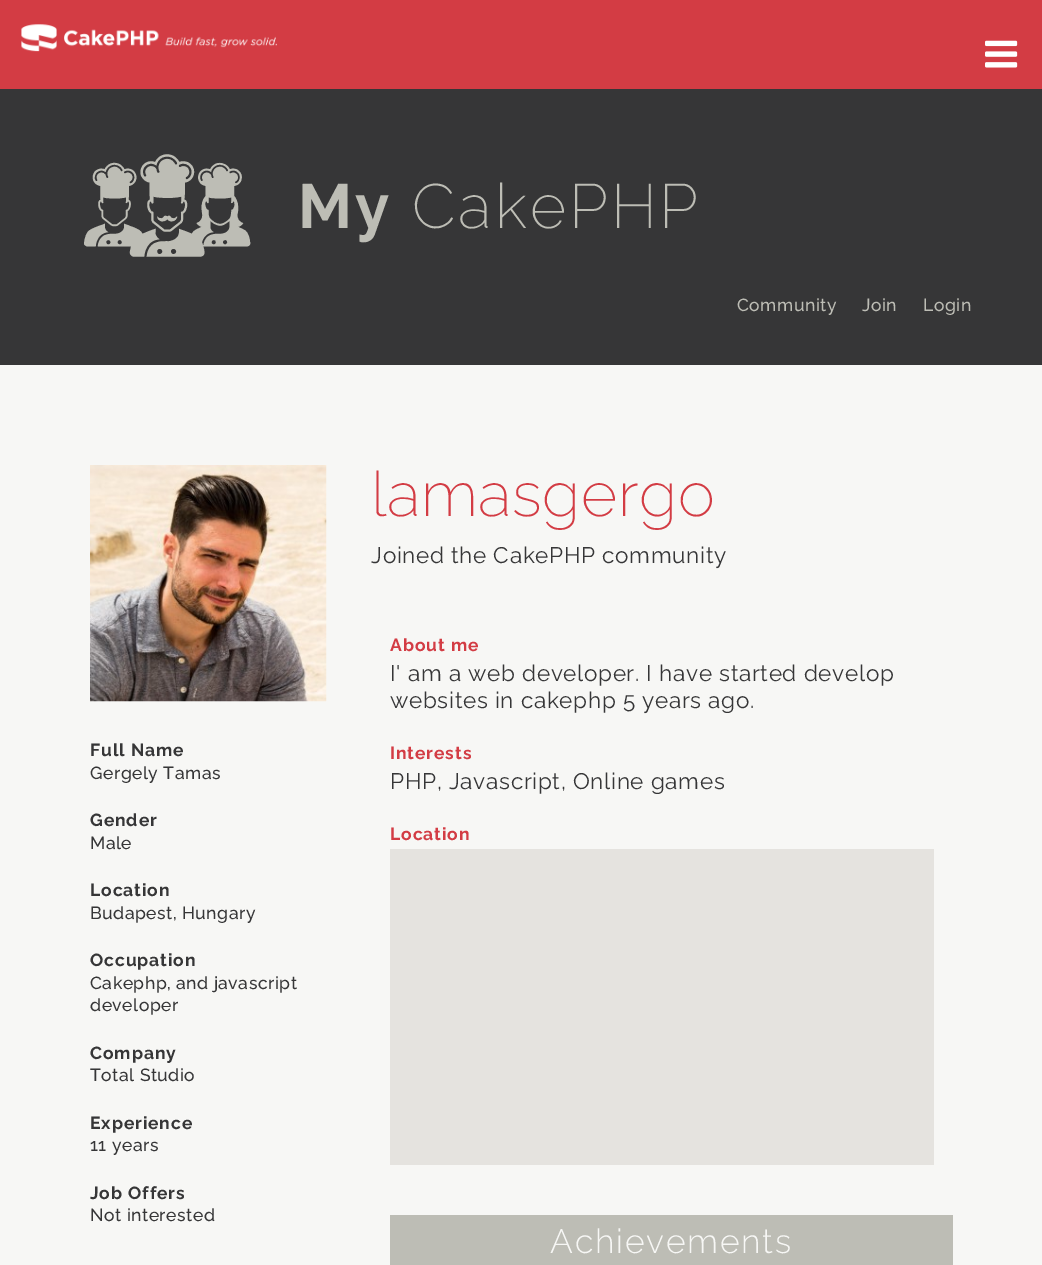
%!PS
<< /PageSize [1042 1265] >> setpagedevice
/mt/moveto load def
/co { dup -16 bitshift 255 div exch dup -8 bitshift 255 and 255 div exch 255 and 255 div setrgbcolor } def
/fn { [ exch dup neg 0 0 3 -1 roll 0 0 ] selectfont } def
/bx { co rectfill } def
/im { 5 dict begin { /h /w /y /x /name } { exch def } forall
  gsave x y translate w h scale
  w h 8 [w 0 0 h 0 0] name (r) file false 3 colorimage grestore end } def
0 1265 translate 1 -1 scale
4 setmiterlimit
0 0 1042 1265 16#363637 bx
0 0 1042 89 16#D33C44 bx
(media/1.raw) 21 24 256 28 im
(media/2.raw) 985 40 33 28 im
0 365 1042 900 16#F7F7F5 bx
(media/3.raw) 90 465 237 237 im
390 849 544 316 16#E5E3DF bx
390 1215 563 50 16#BDBDB5 bx
/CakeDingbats-Regular 112 fn
84 250 mt 3 0 (a) ashow
/Raleway-Bold 62.5 fn
298 228 mt 3 0 (My) ashow
/Raleway-ExtraLight 62.5 fn
412 228 mt 3 0 (CakePHP) ashow
/Raleway-Medium 17.5 fn
737 311 mt .5 0 (Community) ashow
862 311 mt .5 0 (Join) ashow
923 311 mt .5 0 (Login) ashow
/Raleway-Bold 17.5 fn
16#363637 co
90 756 mt .9 0 (Full Name) ashow
/Raleway-Medium 17.5 fn
90 779 mt .5 0 (Gergely Tamas) ashow
/Raleway-Bold 17.5 fn
90 826 mt .9 0 (Gender) ashow
/Raleway-Medium 17.5 fn
90 849 mt .5 0 (Male) ashow
/Raleway-Bold 17.5 fn
90 896 mt .9 0 (Location) ashow
/Raleway-Medium 17.5 fn
90 919 mt .5 0 (Budapest, Hungary) ashow
/Raleway-Bold 17.5 fn
90 966 mt .9 0 (Occupation) ashow
/Raleway-Medium 17.5 fn
90 989 mt .5 0 (Cakephp, and javascript) ashow
90 1011 mt .5 0 (developer) ashow
/Raleway-Bold 17.5 fn
90 1059 mt .9 0 (Company) ashow
/Raleway-Medium 17.5 fn
90 1081 mt .5 0 (Total Studio) ashow
/Raleway-Bold 17.5 fn
90 1129 mt .9 0 (Experience) ashow
/Raleway-Medium 17.5 fn
90 1151 mt .5 0 (11 years) ashow
/Raleway-Bold 17.5 fn
90 1199 mt .9 0 (Job Offers) ashow
/Raleway-Medium 17.5 fn
90 1221 mt .5 0 (Not interested) ashow
/Raleway-ExtraLight 62.5 fn
16#D33C44 co
371 516 mt .6 0 (lamasgergo) ashow
/Raleway-Regular 22.5 fn
16#363637 co
371 563 mt .7 0 (Joined the CakePHP community) ashow
/Raleway-Bold 17.5 fn
16#D33C44 co
390 651 mt .9 0 (About me) ashow
/Raleway-Regular 22.5 fn
16#363637 co
390 681 mt .7 0 (I' am a web developer. I have started develop) ashow
390 708 mt .7 0 (websites in cakephp 5 years ago.) ashow
/Raleway-Bold 17.5 fn
16#D33C44 co
390 759 mt .9 0 (Interests) ashow
/Raleway-Regular 22.5 fn
16#363637 co
390 789 mt .7 0 (PHP, Javascript, Online games) ashow
/Raleway-Bold 17.5 fn
16#D33C44 co
390 840 mt .9 0 (Location) ashow
/Raleway-Light 33.75 fn
16#F7F7F5 co
550 1253 mt 1.75 0 (Achievements) ashow
showpage
